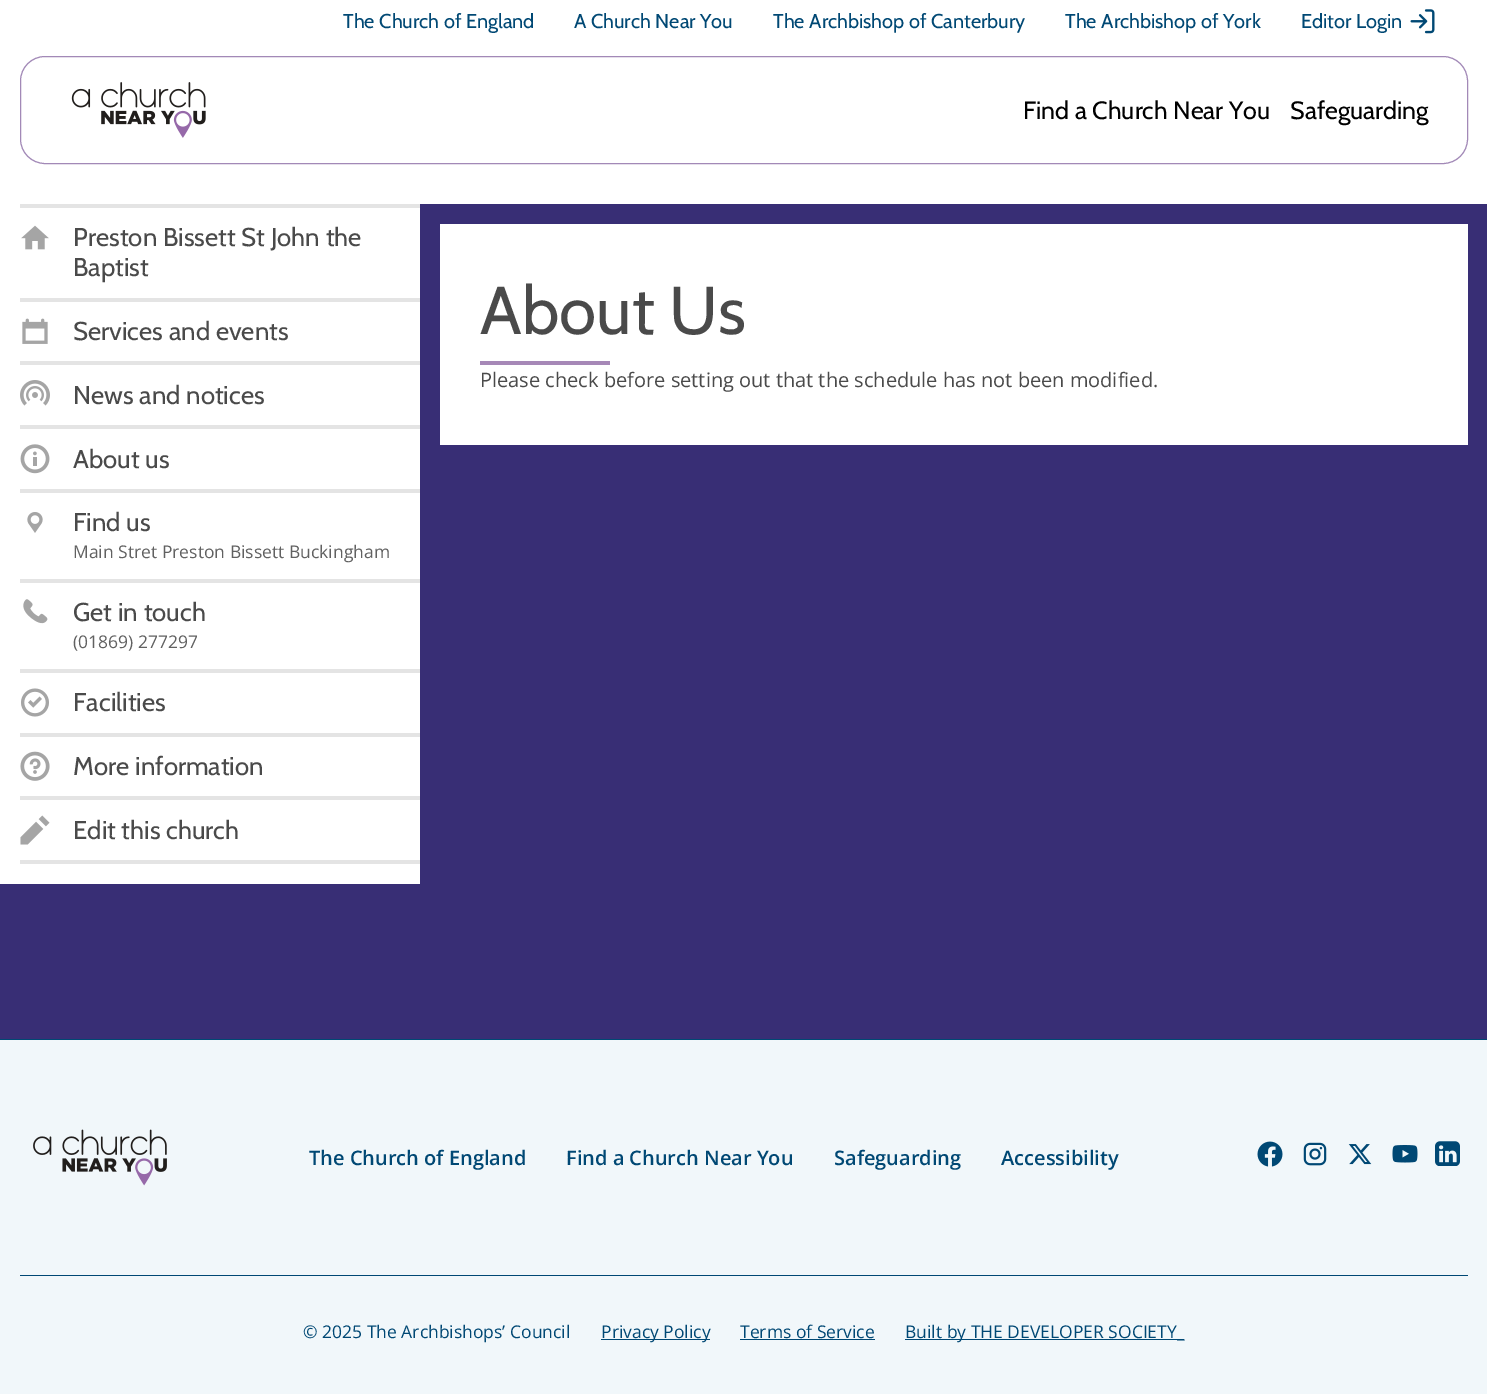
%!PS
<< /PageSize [1487 1394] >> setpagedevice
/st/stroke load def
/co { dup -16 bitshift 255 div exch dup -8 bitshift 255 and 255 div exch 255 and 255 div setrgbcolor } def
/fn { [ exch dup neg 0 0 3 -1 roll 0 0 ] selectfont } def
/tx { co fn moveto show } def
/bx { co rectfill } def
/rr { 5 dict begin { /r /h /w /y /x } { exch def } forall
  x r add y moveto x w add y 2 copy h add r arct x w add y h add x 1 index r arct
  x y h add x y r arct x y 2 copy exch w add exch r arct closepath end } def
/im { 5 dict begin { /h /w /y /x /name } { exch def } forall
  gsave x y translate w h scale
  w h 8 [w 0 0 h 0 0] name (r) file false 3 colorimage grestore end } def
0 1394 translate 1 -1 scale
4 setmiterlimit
0 0 1487 1394 16#FFFFFF bx
(media/1.raw) 1410 9 25 25 im
16#A289B7 co
20.5 56.5 1447 107 24.5 rr st
(media/2.raw) 71 82 135 56 im
0 204 1487 835 16#382E75 bx
0 204 420 680 16#FFFFFF bx
20 204 400 4 16#E4E4E4 bx
(media/3.raw) 21 225 28 25 im
20 298 400 4 16#E4E4E4 bx
(media/4.raw) 22 318 26 26 im
20 361 400 4 16#E4E4E4 bx
(media/5.raw) 20 380 30 26 im
20 425 400 4 16#E4E4E4 bx
(media/6.raw) 20 444 30 30 im
20 489 400 4 16#E4E4E4 bx
(media/7.raw) 27 512 16 21 im
20 579 400 4 16#E4E4E4 bx
(media/8.raw) 23 599 25 25 im
20 669 400 4 16#E4E4E4 bx
(media/9.raw) 21 688 28 29 im
20 733 400 4 16#E4E4E4 bx
(media/10.raw) 20 751 30 30 im
20 796 400 4 16#E4E4E4 bx
20 860 400 4 16#E4E4E4 bx
(media/11.raw) 20 815 30 30 im
440 224 1028 221 16#FFFFFF bx
480 361 130 4 16#A688B7 bx
0 1040 1487 354 16#F1F7FA bx
0 1039 1487 1 16#004874 bx
(media/12.raw) 33 1129 134 57 im
(media/13.raw) 1257 1141 26 26 im
(media/14.raw) 1303 1142 24 24 im
(media/15.raw) 1348 1144 24 21 im
(media/16.raw) 1392 1145 26 18 im
(media/17.raw) 1435 1141 25 25 im
20 1275 1448 1 16#004874 bx
601 1339 109 1 16#004874 bx
740 1339 135 1 16#004874 bx
905 1339 279 1 16#004874 bx
(The Church of England) 343 28 /Cabin-Regular 20 16#004874 tx
(A Church Near You) 574 28 /Cabin-Regular 20 16#004874 tx
(The Archbishop of Canterbury) 773 28 /Cabin-Regular 20 16#004874 tx
(The Archbishop of York) 1065 28 /Cabin-Regular 20 16#004874 tx
(Editor Login) 1301 28 /Cabin-Regular 20 16#004874 tx
(Find a Church Near You) 1023 119 /Cabin-Regular 25 16#000000 tx
(Safeguarding) 1290 119 /Cabin-Regular 25 16#000000 tx
(Preston Bissett St John the) 73 246 /Cabin-Regular 25.75 16#4A4A4A tx
(Baptist) 73 276 /Cabin-Regular 25.75 16#4A4A4A tx
(Services and events) 73 340 /Cabin-Regular 25.75 16#4A4A4A tx
(News and notices) 73 404 /Cabin-Regular 25.75 16#4A4A4A tx
(About us) 73 468 /Cabin-Regular 25.75 16#4A4A4A tx
(Find us) 73 531 /Cabin-Regular 25.75 16#4A4A4A tx
(Main Stret Preston Bissett Buckingham) 73 558 /OpenSans-Regular 17.5 16#616161 tx
(Get in touch) 73 621 /Cabin-Regular 25.75 16#4A4A4A tx
(\(01869\) 277297) 73 648 /OpenSans-Regular 17.5 16#616161 tx
(Facilities) 73 711 /Cabin-Regular 25.75 16#4A4A4A tx
(More information) 73 775 /Cabin-Regular 25.75 16#4A4A4A tx
(Edit this church) 73 839 /Cabin-Regular 25.75 16#4A4A4A tx
(About Us) 480 334 /Cabin-Regular 67.5 16#4A4A4A tx
(Please check before setting out that the schedule has not been modified.) 480 387 /OpenSans-Regular 20 16#4A4A4A tx
(The Church of England) 309 1165 /OpenSans-SemiBold 20 16#004874 tx
(Find a Church Near You) 566 1165 /OpenSans-SemiBold 20 16#004874 tx
(Safeguarding) 834 1165 /OpenSans-SemiBold 20 16#004874 tx
(Accessibility) 1001 1165 /OpenSans-SemiBold 20 16#004874 tx
(© 2025 The Archbishops’ Council) 303 1338 /OpenSans-Regular 17.5 16#004874 tx
(Privacy Policy) 601 1338 /OpenSans-Regular 17.5 16#004874 tx
(Terms of Service) 740 1338 /OpenSans-Regular 17.5 16#004874 tx
(Built by THE DEVELOPER SOCIETY_) 905 1338 /OpenSans-Regular 17.5 16#004874 tx
showpage
